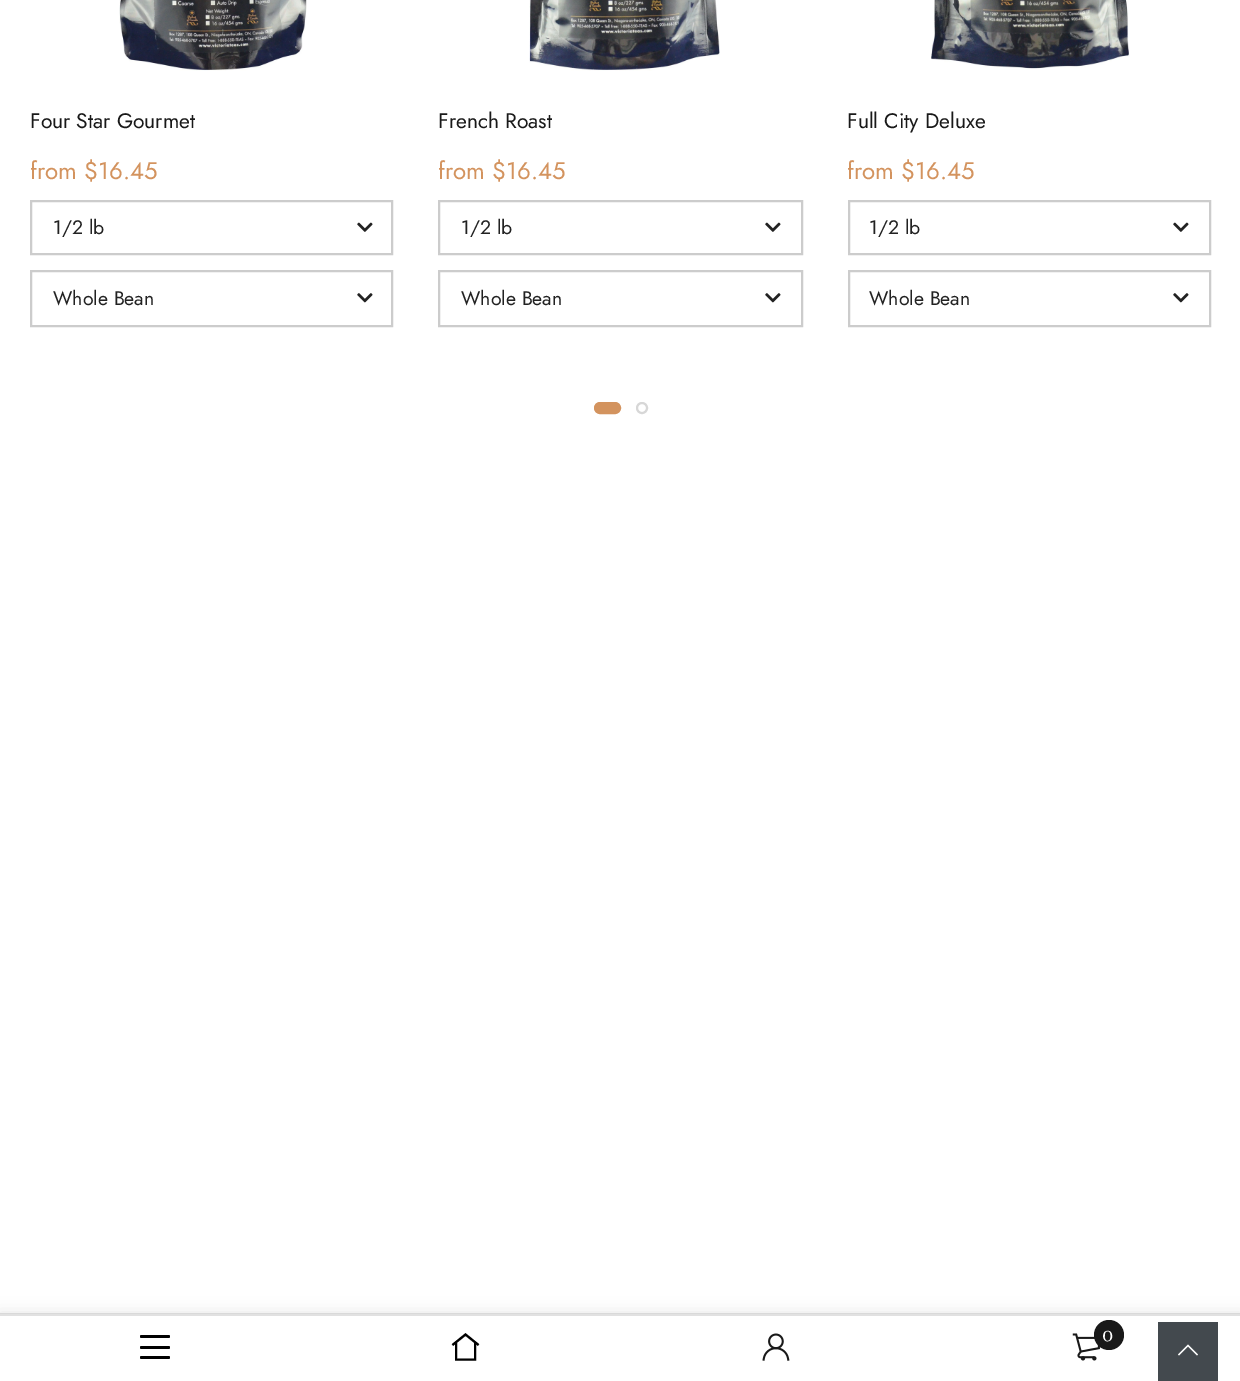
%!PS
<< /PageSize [1240 1381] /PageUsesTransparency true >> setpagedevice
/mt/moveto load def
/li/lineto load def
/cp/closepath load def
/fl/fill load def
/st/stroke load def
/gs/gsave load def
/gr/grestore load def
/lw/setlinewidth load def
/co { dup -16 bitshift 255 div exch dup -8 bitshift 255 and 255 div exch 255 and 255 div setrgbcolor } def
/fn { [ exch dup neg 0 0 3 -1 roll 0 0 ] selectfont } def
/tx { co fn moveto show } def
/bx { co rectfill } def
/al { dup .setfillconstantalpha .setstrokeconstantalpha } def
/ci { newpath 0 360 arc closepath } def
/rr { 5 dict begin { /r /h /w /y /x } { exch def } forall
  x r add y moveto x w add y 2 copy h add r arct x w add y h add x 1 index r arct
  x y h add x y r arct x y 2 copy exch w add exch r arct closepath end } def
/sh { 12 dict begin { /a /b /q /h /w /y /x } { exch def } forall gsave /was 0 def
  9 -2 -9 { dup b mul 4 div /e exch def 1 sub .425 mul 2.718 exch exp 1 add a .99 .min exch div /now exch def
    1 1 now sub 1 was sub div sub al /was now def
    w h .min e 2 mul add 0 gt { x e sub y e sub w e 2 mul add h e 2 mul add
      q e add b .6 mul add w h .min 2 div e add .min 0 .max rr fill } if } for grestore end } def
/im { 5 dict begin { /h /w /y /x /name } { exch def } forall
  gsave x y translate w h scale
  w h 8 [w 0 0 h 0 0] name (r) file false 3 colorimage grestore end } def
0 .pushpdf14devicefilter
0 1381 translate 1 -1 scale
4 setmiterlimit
0 0 1240 1381 16#FFFFFF bx
(media/1.raw) 119 0 188 71 im
(media/2.raw) 357 222 16 10 im
16#CCCCCC co
2 lw
31 201 361 53 rectstroke
(media/3.raw) 357 293 16 10 im
31 271 361 55 rectstroke
(media/4.raw) 529 0 191 71 im
(media/2.raw) 765 222 16 10 im
439 201 363 53 rectstroke
(media/3.raw) 765 293 16 10 im
439 271 363 55 rectstroke
(media/5.raw) 931 0 199 69 im
(media/2.raw) 1173 222 16 10 im
849 201 361 53 rectstroke
(media/3.raw) 1173 293 16 10 im
849 271 361 55 rectstroke
16#D3935E co
595 403 25 10 5 rr gs fl gr
st
16#D7D7D7 co
642 408 5 ci st
0 1313 1240 1 16#E5E5E5 bx
16#000000 co
-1 1313 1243 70 0 7.5 .1 sh
0 1316 1240 65 16#FFFFFF bx
0 1314 1240 2 16#E1E1E1 bx
16#000000 co
140 1335 30 3 1.5 rr fl
140 1346 30 3 1.5 rr fl
140 1356 30 3 1.5 rr fl
2.1 lw
475 1343 mt 475 1359.5 li 456 1359.5 li 456 1343 li 478.5 1345 mt 465.5 1334.5 li 452.5 1345 li st
(media/6.raw) 762 1333 28 28 im
(media/7.raw) 1072 1333 28 28 im
16#191919 co
1109 1335 15 ci fl
1158 1322 60 59 16#43494E bx
16#FFFFFF co
1188 1344.5 mt 1198 1354.5 li 1197 1355.5 li 1188 1346.5 li 1179 1355.5 li 1178 1354.5 li cp fl
(Four Star Gourmet) 30 128 /Jost-Regular 21 16#191919 tx
(from $16.45) 30 179 /Jost-Regular 24 16#D3935E tx
(1/2 lb) 53 234 /Jost-Regular 19.5 16#222222 tx
(Whole Bean) 53 305 /Jost-Regular 19.5 16#222222 tx
(French Roast) 438 128 /Jost-Regular 21 16#191919 tx
(from $16.45) 438 179 /Jost-Regular 24 16#D3935E tx
(1/2 lb) 461 234 /Jost-Regular 19.5 16#222222 tx
(Whole Bean) 461 305 /Jost-Regular 19.5 16#222222 tx
(Full City Deluxe) 847 128 /Jost-Regular 21 16#191919 tx
(from $16.45) 847 179 /Jost-Regular 24 16#D3935E tx
(1/2 lb) 869 234 /Jost-Regular 19.5 16#222222 tx
(Whole Bean) 869 305 /Jost-Regular 19.5 16#222222 tx
(0) 1102 1341 /Alice-Regular 19.5 16#FFFFFF tx
.poppdf14devicefilter showpage
